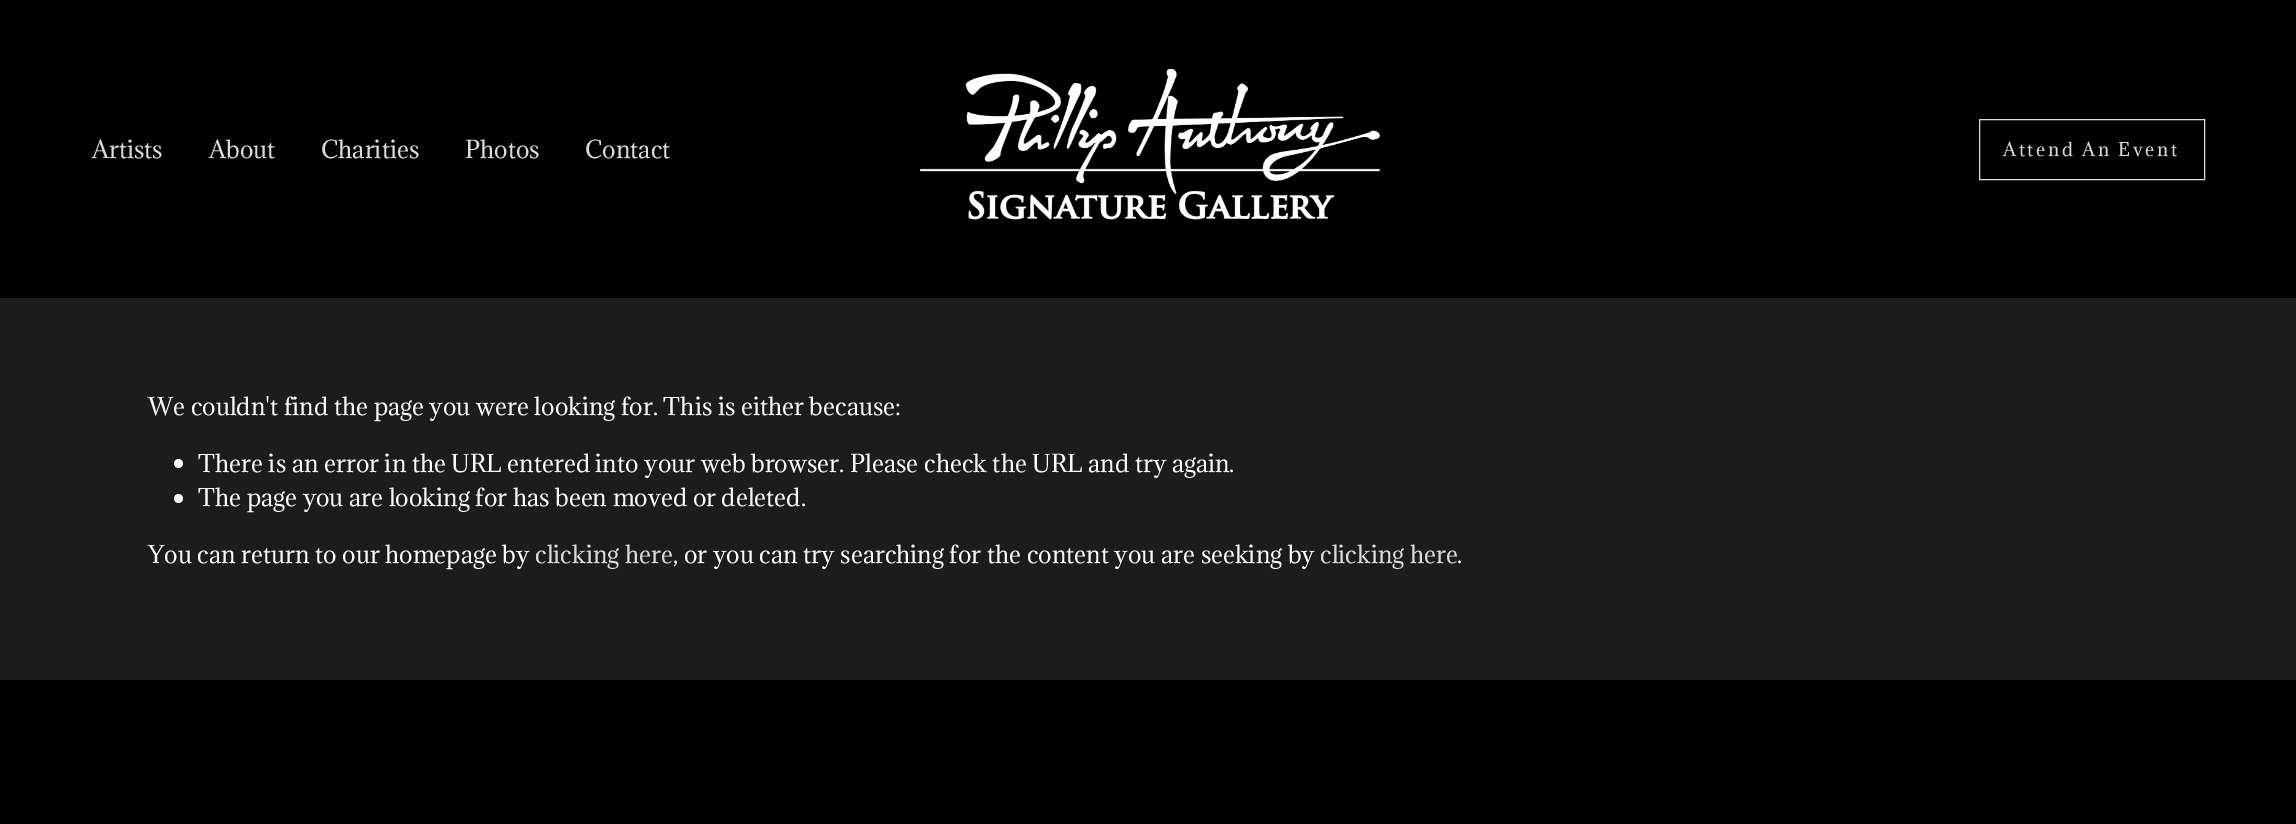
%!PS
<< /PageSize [2296 824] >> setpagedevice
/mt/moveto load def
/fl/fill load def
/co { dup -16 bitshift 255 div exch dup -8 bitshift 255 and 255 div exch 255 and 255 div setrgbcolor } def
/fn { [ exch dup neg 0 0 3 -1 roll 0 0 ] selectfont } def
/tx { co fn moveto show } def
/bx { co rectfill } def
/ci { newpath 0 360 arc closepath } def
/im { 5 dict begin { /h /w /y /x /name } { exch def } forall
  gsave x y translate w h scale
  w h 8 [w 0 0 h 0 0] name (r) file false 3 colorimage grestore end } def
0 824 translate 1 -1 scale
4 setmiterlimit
0 0 2296 824 16#1C1C1C bx
0 0 2296 298 16#000000 bx
(media/1.raw) 920 69 460 151 im
16#DCDCDC co
1979.5 119.5 225 60 rectstroke
16#FAFAFA co
178.5 463.5 4.5 ci fl
178.5 498.5 4.5 ci fl
0 680 2296 144 16#000000 bx
(Artists) 92 158 /Adamina-Regular 22.75 16#DCDCDC tx
(About) 209 158 /Adamina-Regular 22.75 16#DCDCDC tx
(Charities) 321 158 /Adamina-Regular 22.75 16#DCDCDC tx
(Photos) 465 158 /Adamina-Regular 22.75 16#DCDCDC tx
(Contact) 585 158 /Adamina-Regular 22.75 16#DCDCDC tx
/Adamina-Regular 17.5 fn
2003 156 mt 2.6 0 (Attend An Event) ashow
(We couldn't find the page you were looking for. This is either because:) 148 415 /Adamina-Regular 22.75 16#FAFAFA tx
(There is an error in the URL entered into your web browser. Please check the URL and try again.) 198 472 /Adamina-Regular 22.75 16#FAFAFA tx
(The page you are looking for has been moved or deleted.) 198 506 /Adamina-Regular 22.75 16#FAFAFA tx
(You can return to our homepage by) 148 563 /Adamina-Regular 22.75 16#FAFAFA tx
(clicking here) 535 563 /Adamina-Regular 22.75 16#DCDCDC tx
(, or you can try searching for the content you are seeking by) 673 563 /Adamina-Regular 22.75 16#FAFAFA tx
(clicking here) 1320 563 /Adamina-Regular 22.75 16#DCDCDC tx
(.) 1457 563 /Adamina-Regular 22.75 16#FAFAFA tx
showpage
